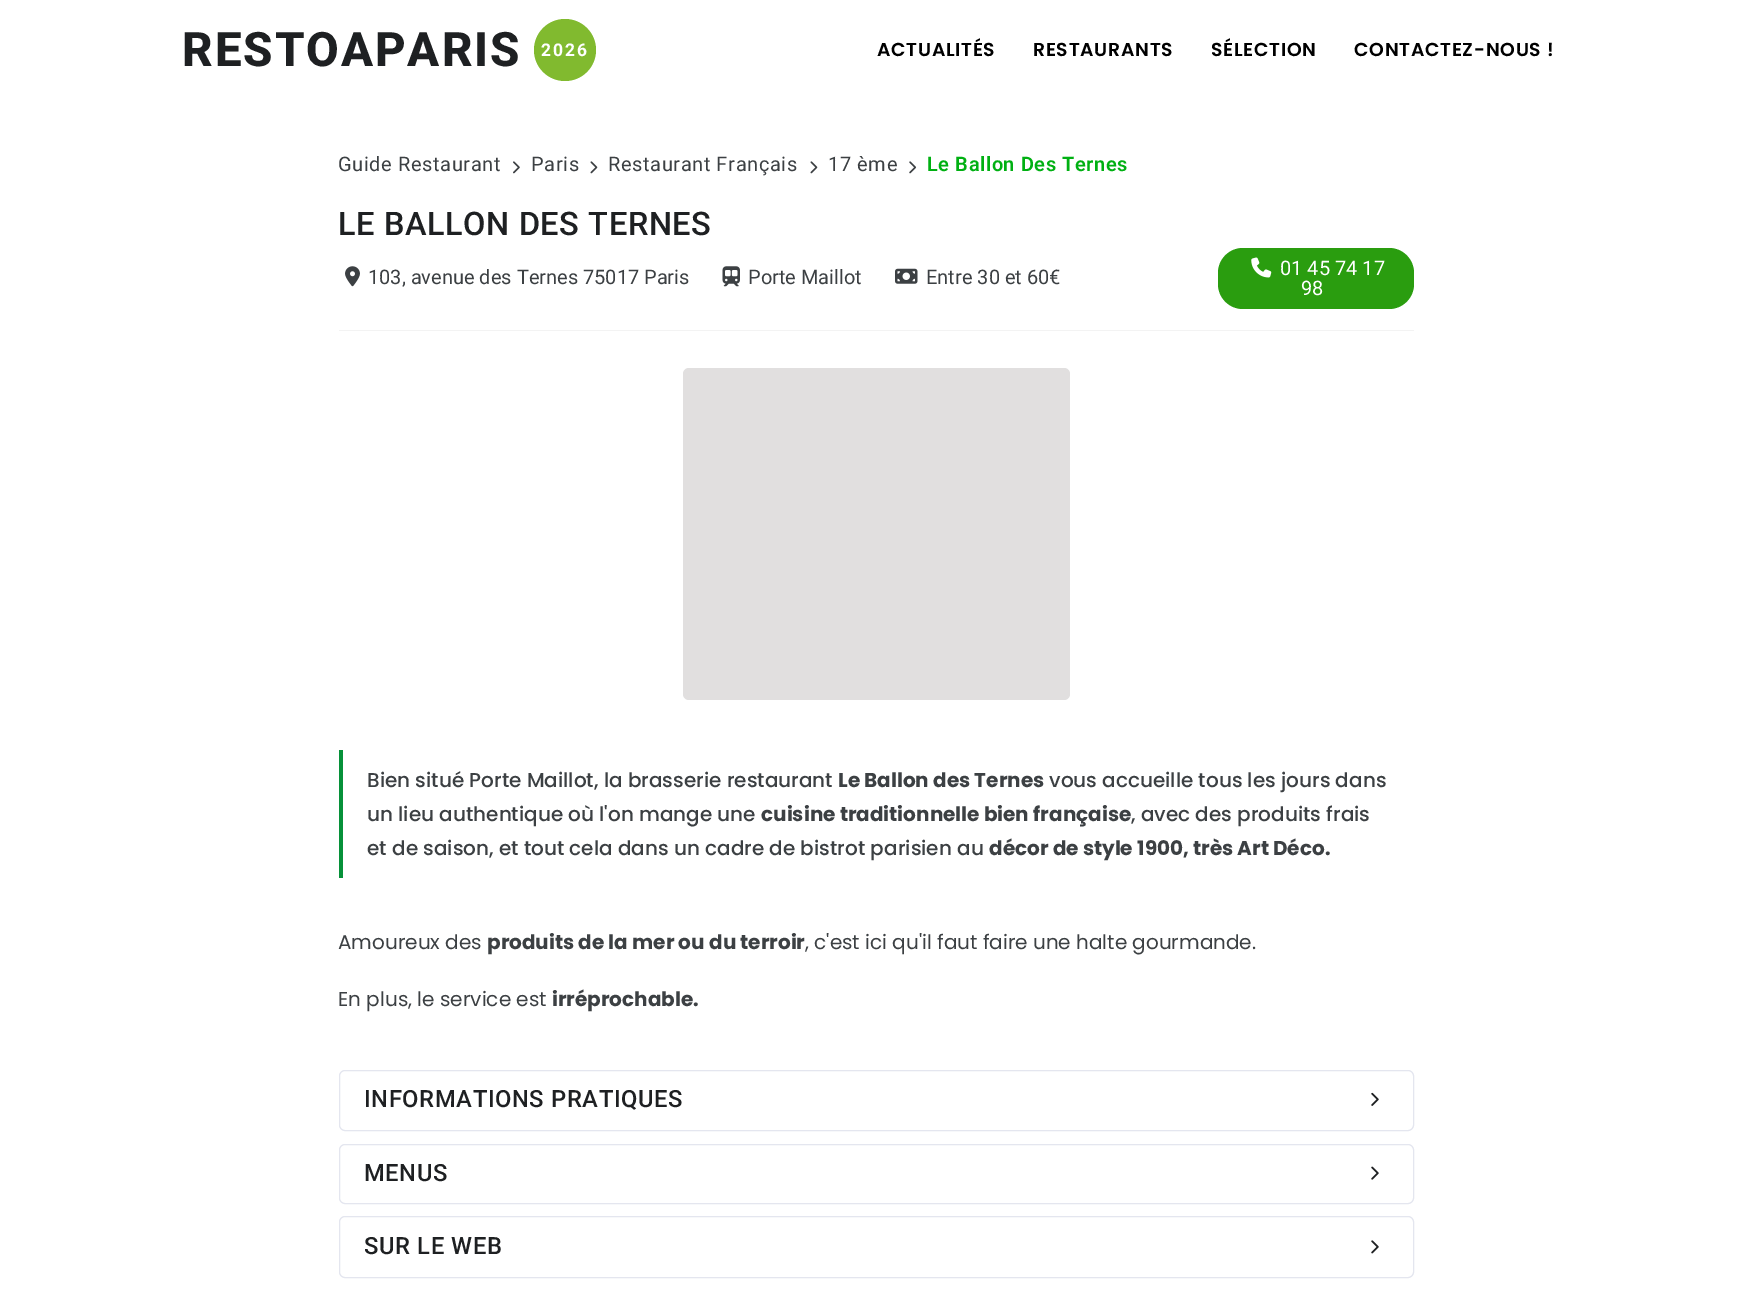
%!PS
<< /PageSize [1751 1315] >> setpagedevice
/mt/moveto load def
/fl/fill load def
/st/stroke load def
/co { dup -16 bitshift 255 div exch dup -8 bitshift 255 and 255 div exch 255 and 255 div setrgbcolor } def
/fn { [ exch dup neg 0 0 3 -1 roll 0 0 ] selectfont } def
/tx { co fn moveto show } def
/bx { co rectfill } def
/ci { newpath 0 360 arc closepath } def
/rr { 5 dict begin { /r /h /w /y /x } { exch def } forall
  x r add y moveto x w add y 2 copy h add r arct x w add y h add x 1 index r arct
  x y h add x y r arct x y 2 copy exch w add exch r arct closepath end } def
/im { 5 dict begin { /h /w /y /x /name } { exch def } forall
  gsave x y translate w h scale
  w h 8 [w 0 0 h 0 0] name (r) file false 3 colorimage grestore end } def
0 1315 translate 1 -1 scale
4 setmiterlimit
0 0 1751 1315 16#FFFFFF bx
16#81BA2F co
565 50 31 ci fl
(media/1.raw) 513 161 7 13 im
(media/2.raw) 590 161 8 13 im
(media/2.raw) 810 161 8 13 im
(media/3.raw) 909 161 8 13 im
339 330 1075 1 16#F3F3F3 bx
(media/4.raw) 345 266 15 21 im
(media/5.raw) 722 266 18 21 im
(media/6.raw) 895 268 23 16 im
16#2A9D0F co
1218 248 196 61 25 rr fl
(media/7.raw) 1251 257 21 21 im
16#E1DFDF co
683 368 387 332 6 rr fl
339 750 4 128 16#069139 bx
16#E4E6EF co
339.5 1070.5 1074 60 5.5 rr st
(media/8.raw) 1371 1092 8 14 im
339.5 1144.5 1074 59 5.5 rr st
(media/9.raw) 1371 1166 8 14 im
339.5 1216.5 1074 61 5.5 rr st
(media/10.raw) 1371 1240 8 14 im
/Roboto-ExtraBold 47.5 fn
16#1E2022 co
182 66 mt 1.9 0 (RESTOAPARIS) ashow
/Roboto-Bold 17.5 fn
16#FFFFFF co
541 56 mt 1.9 0 (2026) ashow
/Poppins-SemiBold 18.75 fn
16#000000 co
877 56 mt .75 0 (ACTUALITÉS) ashow
1033 56 mt .75 0 (RESTAURANTS) ashow
1211 56 mt .75 0 (SÉLECTION) ashow
1354 56 mt .75 0 (CONTACTEZ-NOUS !) ashow
/Roboto-Regular 20 fn
16#3C4043 co
338 171 mt .6 0 (Guide Restaurant) ashow
531 171 mt .6 0 (Paris) ashow
608 171 mt .6 0 (Restaurant Français) ashow
828 171 mt .6 0 (17 ème) ashow
/Roboto-SemiBold 20 fn
16#00B012 co
927 171 mt .6 0 (Le Ballon Des Ternes) ashow
/Roboto-Medium 32.5 fn
16#1E2022 co
338 235 mt .6 0 (LE BALLON DES TERNES) ashow
(103, avenue des Ternes 75017 Paris) 368 284 /Roboto-Regular 20 16#3C4043 tx
(Porte Maillot) 748 284 /Roboto-Regular 20 16#3C4043 tx
(Entre 30 et 60€) 926 284 /Roboto-Regular 20 16#3C4043 tx
(01 45 74 17) 1280 275 /Roboto-Regular 20 16#FFFFFF tx
(98) 1301 295 /Roboto-Regular 20 16#FFFFFF tx
(Bien situé Porte Maillot, la brasserie restaurant) 367 787 /Poppins-Medium 20 16#3C4043 tx
(Le Ballon des Ternes) 838 787 /Poppins-Bold 20 16#3C4043 tx
(vous accueille tous les jours dans) 1049 787 /Poppins-Medium 20 16#3C4043 tx
(un lieu authentique où l'on mange une) 367 821 /Poppins-Medium 20 16#3C4043 tx
(cuisine traditionnelle bien française) 761 821 /Poppins-Bold 20 16#3C4043 tx
(, avec des produits frais) 1131 821 /Poppins-Medium 20 16#3C4043 tx
(et de saison, et tout cela dans un cadre de bistrot parisien au) 367 855 /Poppins-Medium 20 16#3C4043 tx
(décor de style 1900, très Art Déco.) 989 855 /Poppins-Bold 20 16#3C4043 tx
(Amoureux des) 338 949 /Poppins-Regular 20 16#3C4043 tx
(produits de la mer ou du terroir) 487 949 /Poppins-Bold 20 16#3C4043 tx
(, c'est ici qu'il faut faire une halte gourmande.) 805 949 /Poppins-Regular 20 16#3C4043 tx
(En plus, le service est) 338 1006 /Poppins-Regular 20 16#3C4043 tx
(irréprochable.) 552 1006 /Poppins-Bold 20 16#3C4043 tx
/Roboto-Medium 23.75 fn
16#1E2022 co
364 1107 mt .6 0 (INFORMATIONS PRATIQUES) ashow
364 1181 mt .6 0 (MENUS) ashow
364 1254 mt .6 0 (SUR LE WEB) ashow
showpage
